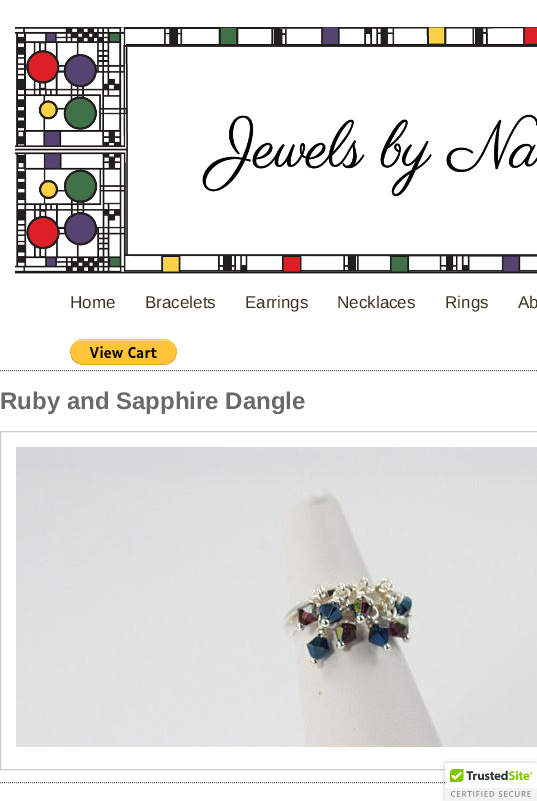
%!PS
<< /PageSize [537 801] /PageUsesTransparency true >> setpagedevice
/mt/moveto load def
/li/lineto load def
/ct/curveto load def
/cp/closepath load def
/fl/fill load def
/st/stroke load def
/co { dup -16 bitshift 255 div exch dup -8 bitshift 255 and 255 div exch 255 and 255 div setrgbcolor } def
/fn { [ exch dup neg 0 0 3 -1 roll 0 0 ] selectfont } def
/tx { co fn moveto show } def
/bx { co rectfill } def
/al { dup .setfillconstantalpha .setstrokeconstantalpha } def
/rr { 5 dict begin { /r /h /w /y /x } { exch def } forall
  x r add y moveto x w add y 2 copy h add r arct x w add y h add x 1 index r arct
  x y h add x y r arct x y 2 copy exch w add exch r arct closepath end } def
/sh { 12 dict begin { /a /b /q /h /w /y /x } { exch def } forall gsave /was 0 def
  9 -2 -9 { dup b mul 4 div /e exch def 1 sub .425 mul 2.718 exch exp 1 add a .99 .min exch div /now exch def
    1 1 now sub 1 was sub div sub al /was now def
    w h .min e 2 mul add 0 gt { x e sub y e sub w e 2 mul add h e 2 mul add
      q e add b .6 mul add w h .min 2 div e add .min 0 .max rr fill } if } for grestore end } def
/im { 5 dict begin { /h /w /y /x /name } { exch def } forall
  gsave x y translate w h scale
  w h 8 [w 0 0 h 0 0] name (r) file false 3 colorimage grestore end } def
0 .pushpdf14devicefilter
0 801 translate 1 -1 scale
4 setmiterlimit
0 0 537 801 16#FFFFFF bx
(media/1.raw) 15 27 522 247 im
(media/2.raw) 70 339 107 26 im
16#5D5A53 co
[1 1] 0 setdash
0 370.5 mt 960 370.5 li st
16#CCCCCC co
[] 0 setdash
.5 431.5 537 338 rectstroke
(media/3.raw) 16 447 521 300 im
16#5D5A53 co
[1 1] 0 setdash
0 782.5 mt 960 782.5 li st
16#000000 co
445 763 92 38 2 2.5 .2 sh
16#FFFFFF co
447 763 mt 537 763 li 537 801 li 445 801 li 445 765 li 445 764 446 763 447 763 ct cp fl
(media/4.raw) 445 763 92 38 im
(Home) 70 308 /LiberationSans-Regular 17 16#3B3420 tx
(Bracelets) 145 308 /LiberationSans-Regular 17 16#3B3420 tx
(Earrings) 245 308 /LiberationSans-Regular 17 16#3B3420 tx
(Necklaces) 337 308 /LiberationSans-Regular 17 16#3B3420 tx
(Rings) 445 308 /LiberationSans-Regular 17 16#3B3420 tx
(Ab) 518 308 /LiberationSans-Regular 17 16#3B3420 tx
(Ruby and Sapphire Dangle) 0 409 /LiberationSans-Bold 24 16#696969 tx
.poppdf14devicefilter showpage
